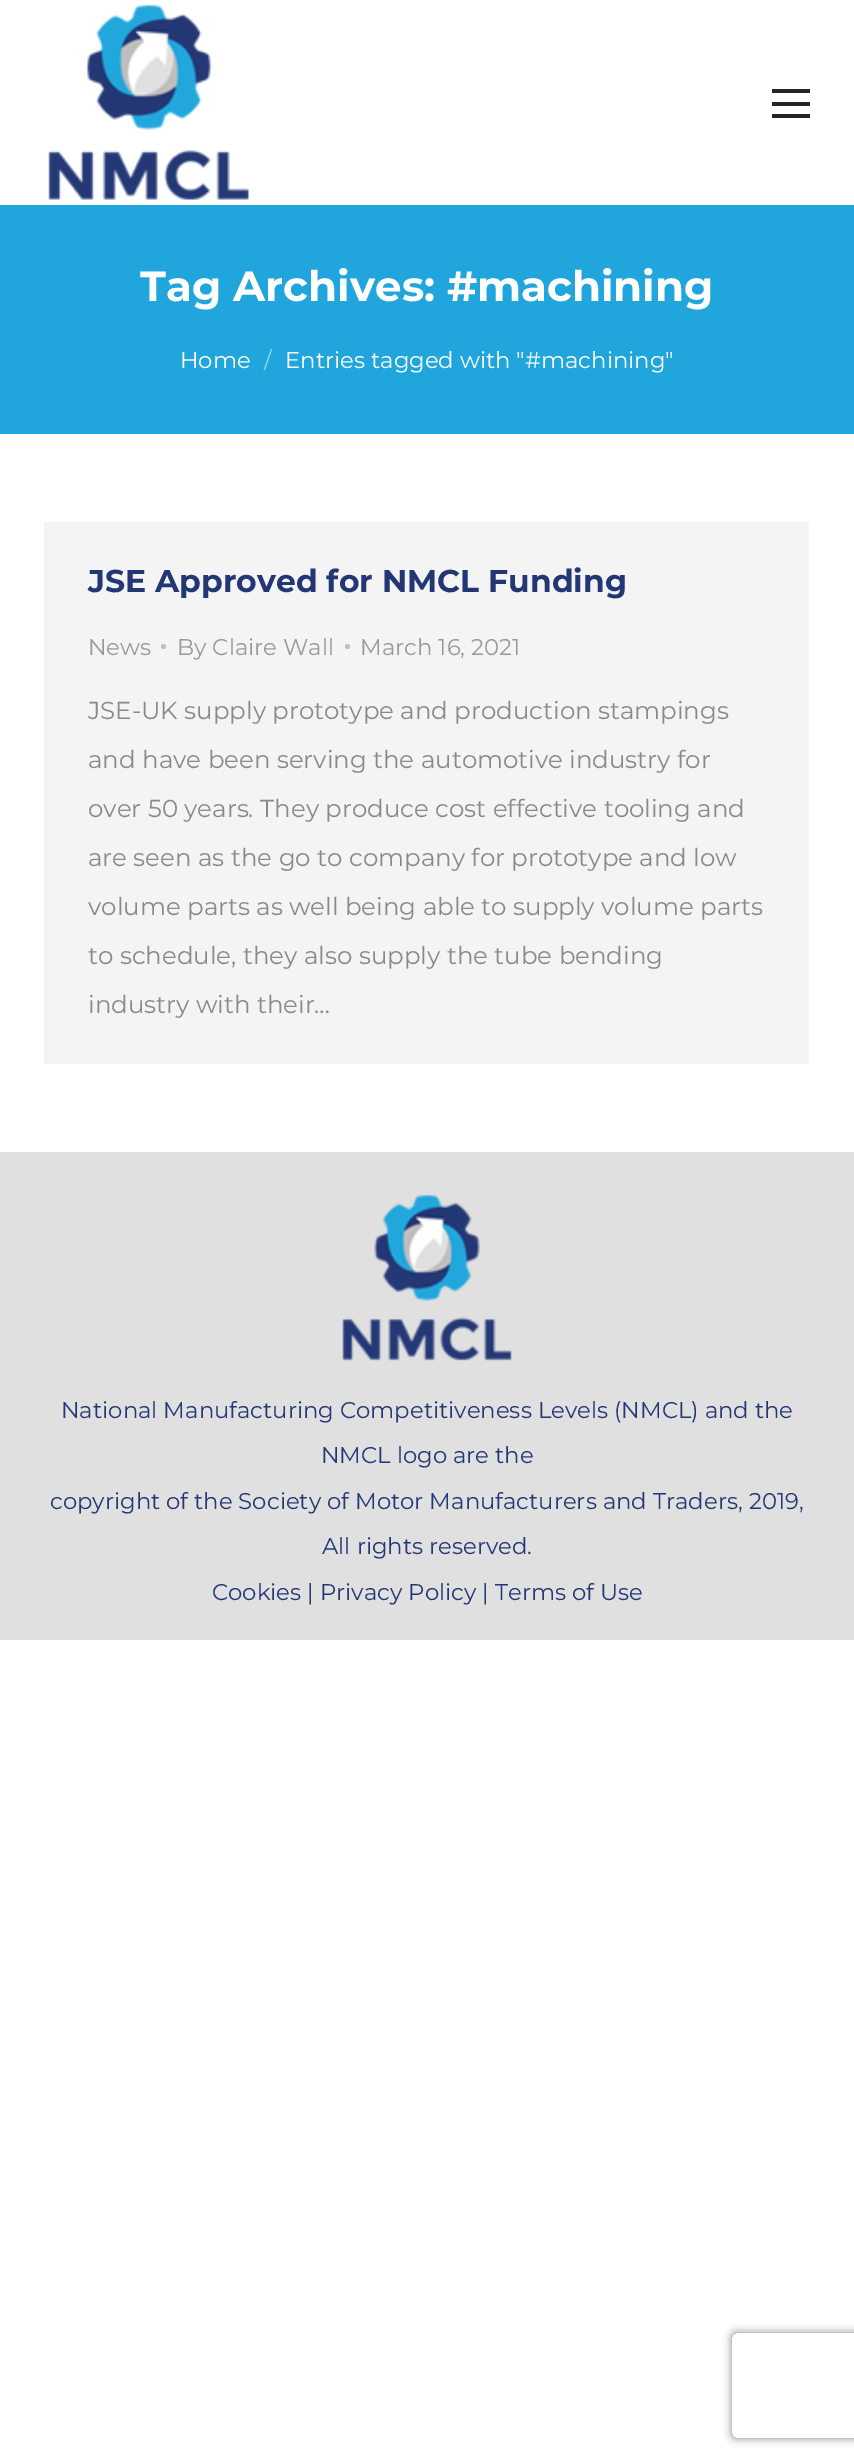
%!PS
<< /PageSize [854 2462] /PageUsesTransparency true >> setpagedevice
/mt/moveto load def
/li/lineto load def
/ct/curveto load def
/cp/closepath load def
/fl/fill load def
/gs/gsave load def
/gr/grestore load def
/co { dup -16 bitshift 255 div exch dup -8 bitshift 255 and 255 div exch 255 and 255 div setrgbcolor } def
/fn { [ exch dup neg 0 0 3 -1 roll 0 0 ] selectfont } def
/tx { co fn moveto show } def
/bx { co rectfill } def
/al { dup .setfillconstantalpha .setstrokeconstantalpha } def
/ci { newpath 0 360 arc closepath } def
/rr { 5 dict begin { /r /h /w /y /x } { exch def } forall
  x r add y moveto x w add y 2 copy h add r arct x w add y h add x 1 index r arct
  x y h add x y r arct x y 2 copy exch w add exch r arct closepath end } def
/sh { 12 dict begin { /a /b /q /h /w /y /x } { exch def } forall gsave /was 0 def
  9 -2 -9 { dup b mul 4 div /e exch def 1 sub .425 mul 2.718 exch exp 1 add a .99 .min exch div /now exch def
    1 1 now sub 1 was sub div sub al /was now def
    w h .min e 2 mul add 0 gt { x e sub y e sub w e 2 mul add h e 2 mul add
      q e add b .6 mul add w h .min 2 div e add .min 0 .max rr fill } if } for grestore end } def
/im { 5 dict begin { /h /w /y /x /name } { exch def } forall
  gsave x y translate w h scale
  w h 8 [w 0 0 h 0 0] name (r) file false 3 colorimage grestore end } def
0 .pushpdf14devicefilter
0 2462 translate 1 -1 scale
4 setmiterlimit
0 0 854 2462 16#FFFFFF bx
(media/1.raw) 48 4 201 196 im
772 102 38 4 16#252525 bx
772 89 38 4 16#252525 bx
772 114 38 4 16#252525 bx
0 205 854 229 16#20A6DC bx
44 522 765 542 16#F4F4F4 bx
16#BFBFBF co
163.5 646.5 2.5 ci fl
347.5 646.5 2.5 ci fl
0 1152 854 488 16#E1E0E1 bx
(media/2.raw) 342 1194 170 167 im
gs
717 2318 mt 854 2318 li 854 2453 li 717 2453 li cp 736 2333 mt 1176 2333 li 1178 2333 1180 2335 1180 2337 ct 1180 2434 li 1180 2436 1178 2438 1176 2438 ct 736 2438 li 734 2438 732 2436 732 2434 ct 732 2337 li 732 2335 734 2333 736 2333 ct cp eoclip newpath
16#808080 co
732 2333 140 105 4 4.5 1 sh
gr
(Tag Archives: #machining) 140 301 /Montserrat-Bold 42 16#FFFFFF tx
(Home) 180 368 /Montserrat-Regular 22.75 16#FFFFFF tx
(/) 264 368 /Montserrat-Regular 22.75 16#90D3EE tx
(Entries tagged with "#machining") 285 368 /Montserrat-Regular 22.75 16#FFFFFF tx
(JSE Approved for NMCL Funding) 88 592 /Montserrat-Bold 31.5 16#233774 tx
(News) 88 655 /Montserrat-Regular 22.75 16#999999 tx
(By Claire Wall) 177 655 /Montserrat-Regular 22.75 16#999999 tx
(March 16, 2021) 360 655 /Montserrat-Regular 22.75 16#999999 tx
(JSE-UK supply prototype and production stampings) 88 719 /Montserrat-Regular 24.5 16#898989 tx
(and have been serving the automotive industry for) 88 768 /Montserrat-Regular 24.5 16#898989 tx
(over 50 years. They produce cost effective tooling and) 88 817 /Montserrat-Regular 24.5 16#898989 tx
(are seen as the go to company for prototype and low) 88 866 /Montserrat-Regular 24.5 16#898989 tx
(volume parts as well being able to supply volume parts) 88 915 /Montserrat-Regular 24.5 16#898989 tx
(to schedule, they also supply the tube bending) 88 964 /Montserrat-Regular 24.5 16#898989 tx
(industry with their…) 88 1013 /Montserrat-Regular 24.5 16#898989 tx
(National Manufacturing Competitiveness Levels \(NMCL\) and the) 61 1418 /Montserrat-Regular 22.75 16#233774 tx
(NMCL logo are the) 321 1463 /Montserrat-Regular 22.75 16#233774 tx
(copyright of the Society of Motor Manufacturers and Traders, 2019,) 50 1509 /Montserrat-Regular 22.75 16#233774 tx
(All rights reserved.) 322 1554 /Montserrat-Regular 22.75 16#233774 tx
(Cookies | Privacy Policy | Terms of Use) 212 1600 /Montserrat-Regular 22.75 16#233774 tx
.poppdf14devicefilter showpage
